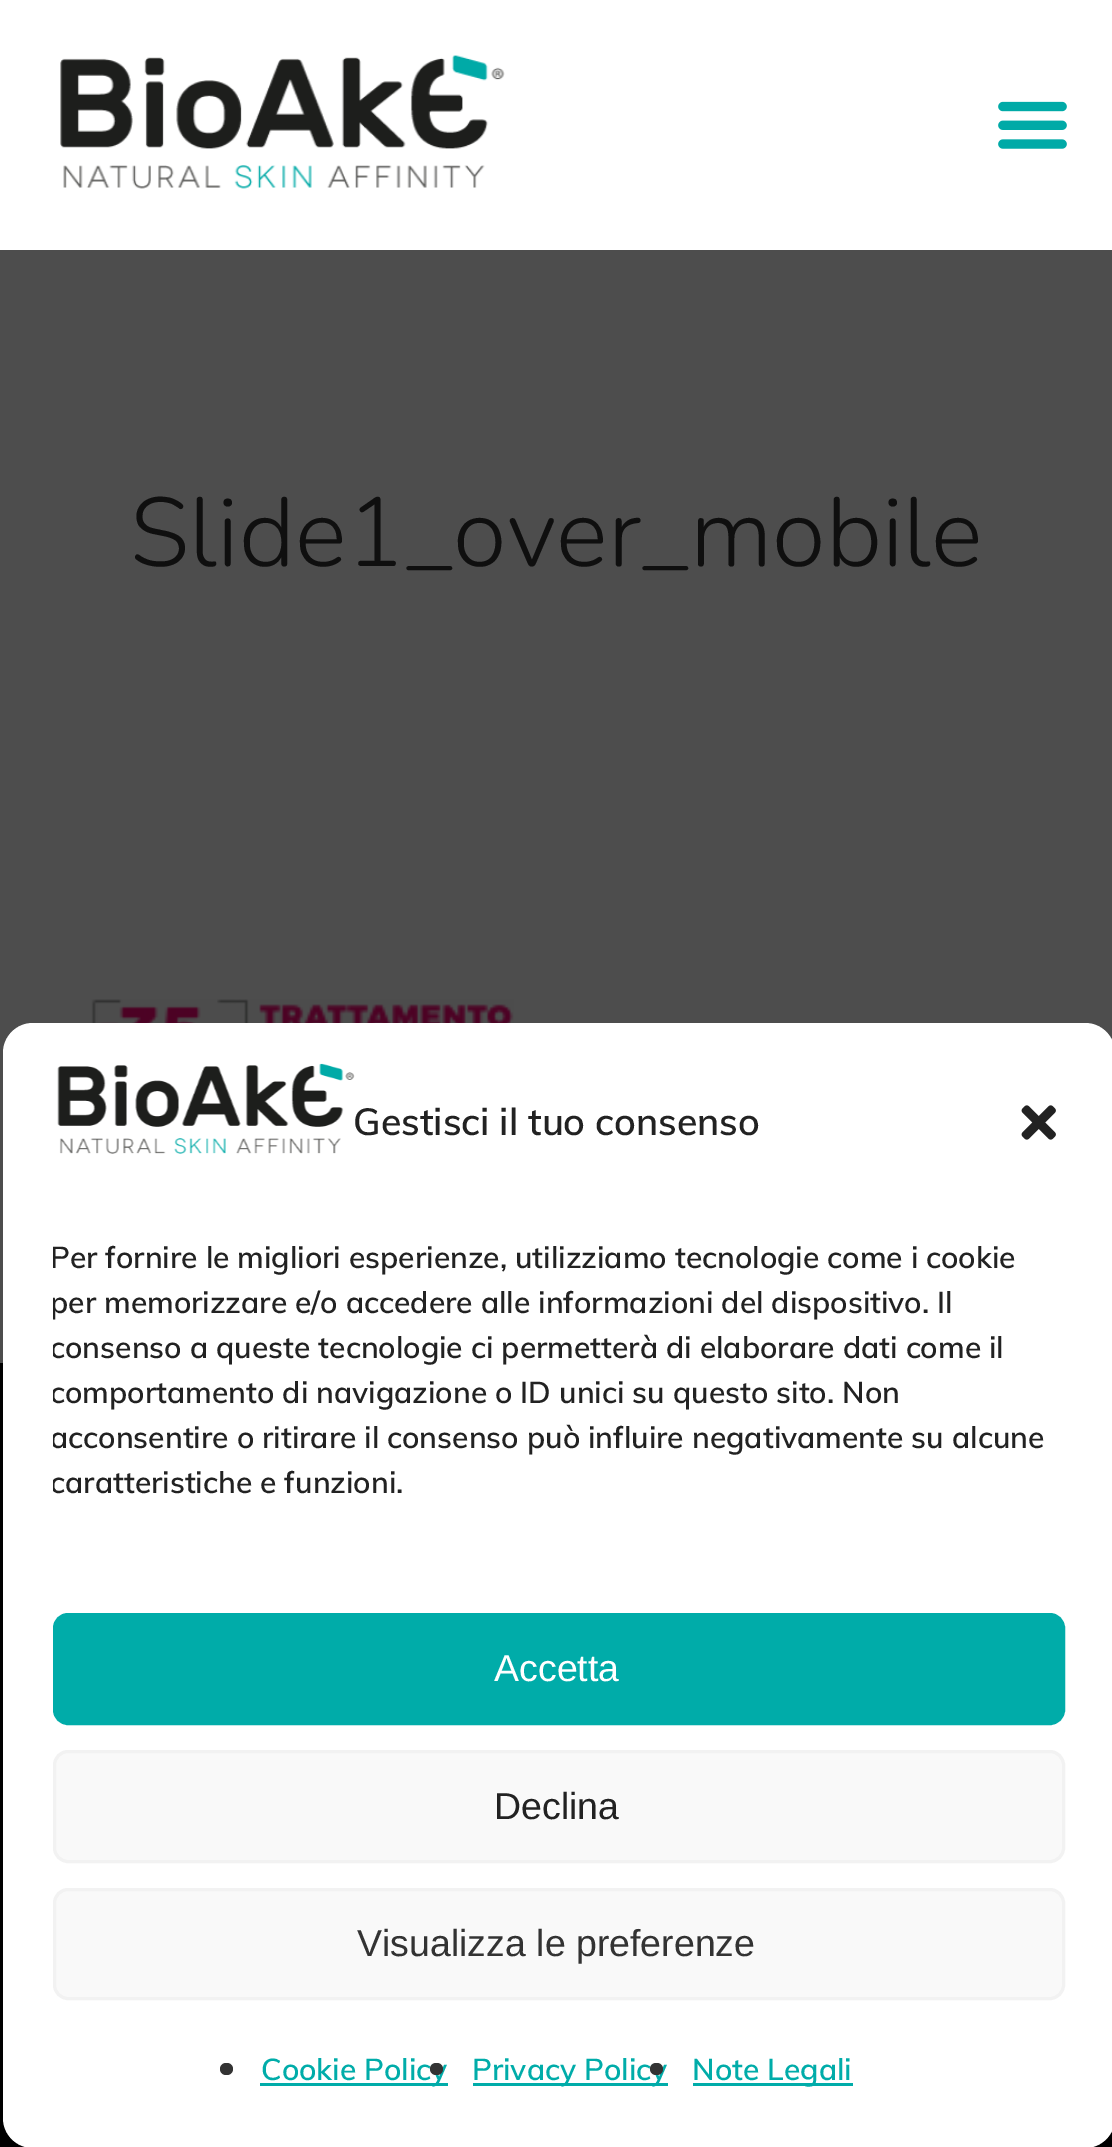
%!PS
<< /PageSize [1112 2147] >> setpagedevice
/fl/fill load def
/st/stroke load def
/gs/gsave load def
/gr/grestore load def
/lw/setlinewidth load def
/co { dup -16 bitshift 255 div exch dup -8 bitshift 255 and 255 div exch 255 and 255 div setrgbcolor } def
/fn { [ exch dup neg 0 0 3 -1 roll 0 0 ] selectfont } def
/tx { co fn moveto show } def
/bx { co rectfill } def
/rr { 5 dict begin { /r /h /w /y /x } { exch def } forall
  x r add y moveto x w add y 2 copy h add r arct x w add y h add x 1 index r arct
  x y h add x y r arct x y 2 copy exch w add exch r arct closepath end } def
/im { 5 dict begin { /h /w /y /x /name } { exch def } forall
  gsave x y translate w h scale
  w h 8 [w 0 0 h 0 0] name (r) file false 3 colorimage grestore end } def
0 2147 translate 1 -1 scale
4 setmiterlimit
0 0 1112 2147 16#4D4D4D bx
0 0 1112 250 16#FFFFFF bx
(media/1.raw) 60 55 445 134 im
(media/2.raw) 998 101 69 48 im
(media/3.raw) 91 999 423 24 im
0 1538 1112 609 16#000000 bx
16#FFFFFF co
3 1023 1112 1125 30 rr fl
(media/4.raw) 57 1063 298 91 im
(media/5.raw) 1021 1105 35 35 im
16#00ACA9 co
54.5 1614.5 1009 109 13.5 rr gs fl gr
3 lw
st
16#F9F9F9 co
54.5 1751.5 1009 110 13.5 rr gs fl gr
16#F2F2F2 co
st
16#F9F9F9 co
54.5 1889.5 1009 109 13.5 rr gs fl gr
16#F2F2F2 co
st
16#333333 co
220 2063 13 12 6 rr fl
260 2083 188 3 16#00ACA9 bx
473 2083 195 3 16#00ACA9 bx
693 2083 160 3 16#00ACA9 bx
0 1363 3 175 16#000000 bx
(Slide1_over_mobile) 130 566 /Nunito-Light 97.5 16#0F0F0F tx
(Gestisci il tuo consenso) 353 1135 /Muli-SemiBold 37.5 16#222222 tx
gs
53 1235 1012 328 rectclip
(Per fornire le migliori esperienze, utilizziamo tecnologie come i cookie) 50 1268 /Muli-SemiBold 30 16#222222 tx
(per memorizzare e/o accedere alle informazioni del dispositivo. Il) 50 1313 /Muli-SemiBold 30 16#222222 tx
(consenso a queste tecnologie ci permetterà di elaborare dati come il) 50 1358 /Muli-SemiBold 30 16#222222 tx
(comportamento di navigazione o ID unici su questo sito. Non) 50 1403 /Muli-SemiBold 30 16#222222 tx
(acconsentire o ritirare il consenso può influire negativamente su alcune) 50 1448 /Muli-SemiBold 30 16#222222 tx
(caratteristiche e funzioni.) 50 1493 /Muli-SemiBold 30 16#222222 tx
gr
(Accetta) 494 1681 /LiberationSans-Regular 37.5 16#FFFFFF tx
(Declina) 494 1819 /LiberationSans-Regular 37.5 16#222222 tx
(Visualizza le preferenze) 357 1956 /LiberationSans-Regular 37.5 16#333333 tx
(Cookie Policy) 261 2080 /Muli-SemiBold 30 16#00ACA9 tx
16#333333 co
430 2063 13 12 6 rr fl
(Privacy Policy) 472 2080 /Muli-SemiBold 30 16#00ACA9 tx
16#333333 co
650 2063 13 12 6 rr fl
(Note Legali) 692 2080 /Muli-SemiBold 30 16#00ACA9 tx
showpage
